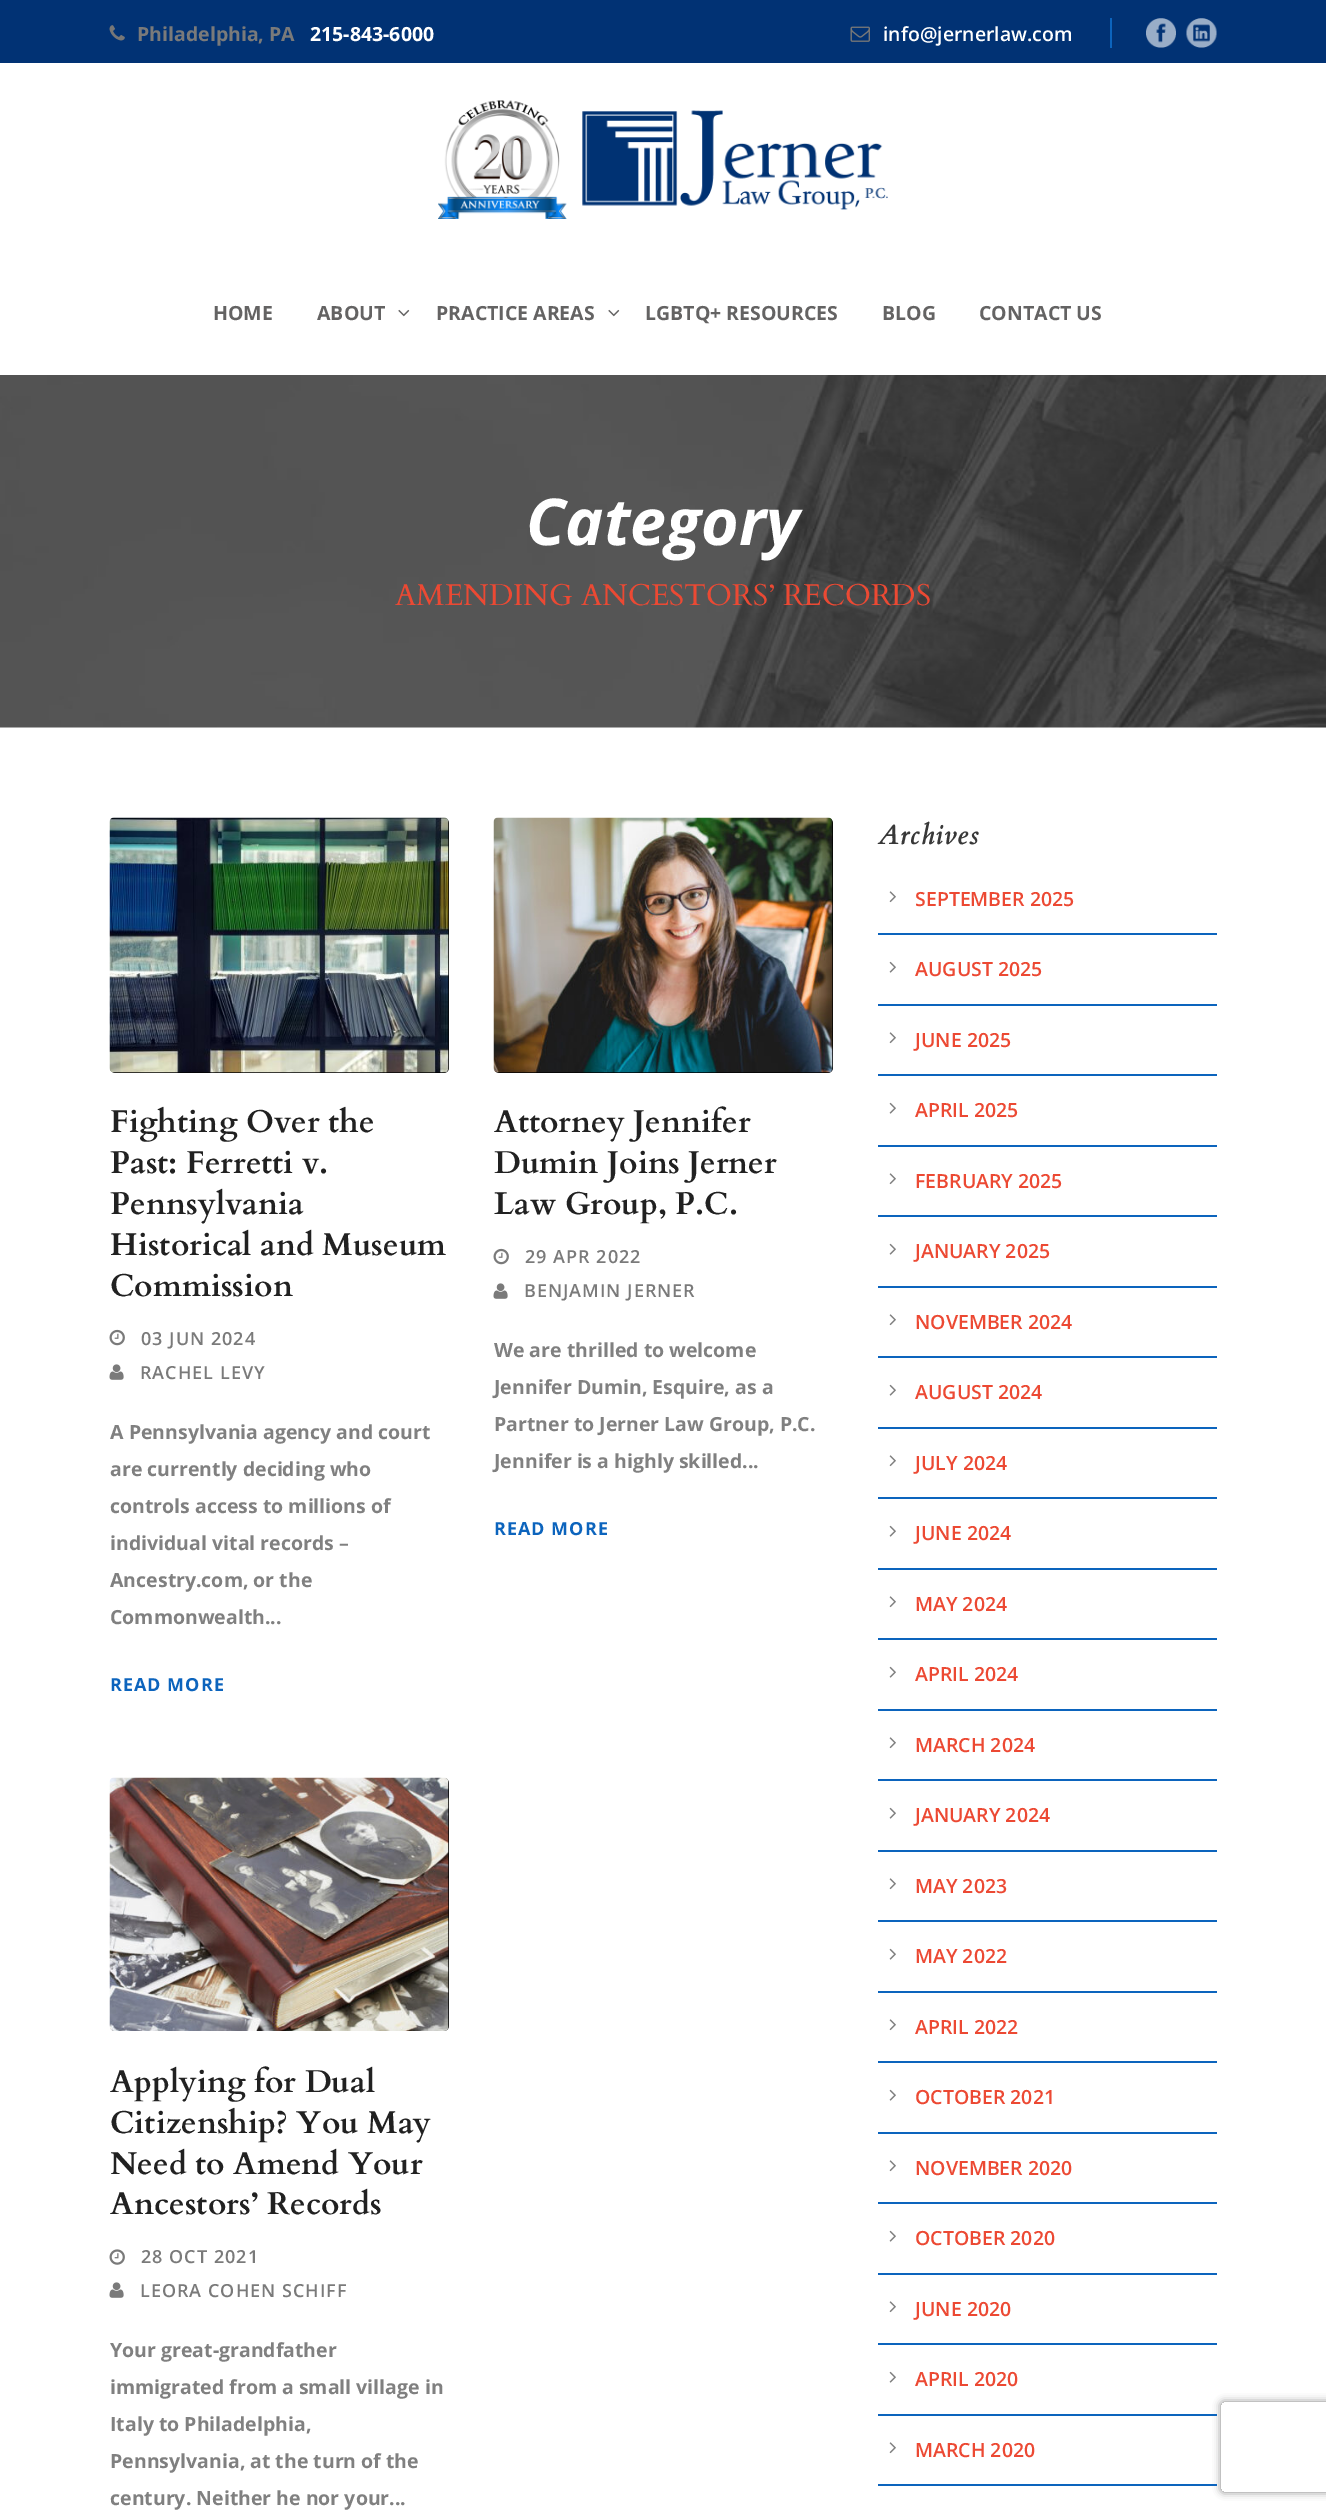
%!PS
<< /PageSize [1326 2512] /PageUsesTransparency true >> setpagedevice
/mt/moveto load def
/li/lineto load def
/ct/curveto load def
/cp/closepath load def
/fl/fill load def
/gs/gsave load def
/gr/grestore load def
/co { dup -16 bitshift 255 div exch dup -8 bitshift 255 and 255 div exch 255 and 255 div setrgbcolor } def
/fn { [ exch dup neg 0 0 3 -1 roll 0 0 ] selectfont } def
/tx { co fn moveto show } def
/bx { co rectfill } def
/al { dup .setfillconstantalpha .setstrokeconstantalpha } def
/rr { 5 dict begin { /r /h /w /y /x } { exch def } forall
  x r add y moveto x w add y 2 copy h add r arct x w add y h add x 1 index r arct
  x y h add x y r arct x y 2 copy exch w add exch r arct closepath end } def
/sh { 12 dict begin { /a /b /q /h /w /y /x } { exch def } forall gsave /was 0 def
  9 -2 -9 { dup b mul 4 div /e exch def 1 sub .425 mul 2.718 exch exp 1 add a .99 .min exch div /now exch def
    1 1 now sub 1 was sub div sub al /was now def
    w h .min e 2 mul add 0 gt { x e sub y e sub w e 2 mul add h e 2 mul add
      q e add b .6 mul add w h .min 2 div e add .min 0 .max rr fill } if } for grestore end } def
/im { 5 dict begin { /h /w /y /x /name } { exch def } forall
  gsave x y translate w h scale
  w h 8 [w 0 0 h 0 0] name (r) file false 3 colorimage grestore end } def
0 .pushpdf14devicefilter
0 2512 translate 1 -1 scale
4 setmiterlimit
0 0 1326 2512 16#FFFFFF bx
0 0 1326 63 16#013274 bx
(media/1.raw) 109 25 16 16 im
1110 18 2 30 16#0C64BD bx
(media/2.raw) 850 26 20 16 im
(media/3.raw) 1146 18 30 30 im
(media/4.raw) 1186 18 31 30 im
(media/5.raw) 438 100 450 119 im
(media/6.raw) 398 309 12 8 im
(media/6.raw) 608 309 12 8 im
(media/7.raw) 0 375 1326 353 im
16#000000 co
110 818 339 255 5 rr fl
(media/8.raw) 109 817 340 256 im
(media/9.raw) 109 1329 16 17 im
(media/10.raw) 109 1364 15 16 im
494 818 339 255 5 rr fl
(media/11.raw) 493 817 340 256 im
(media/9.raw) 493 1248 16 17 im
(media/10.raw) 493 1283 15 16 im
110 1778 339 253 5 rr fl
(media/12.raw) 109 1777 340 254 im
(media/13.raw) 109 2249 16 16 im
(media/10.raw) 109 2282 15 16 im
878 933 339 2 16#0C64BD bx
(media/14.raw) 889 891 7 12 im
878 1004 339 2 16#0C64BD bx
(media/15.raw) 889 961 7 12 im
878 1074 339 2 16#0C64BD bx
(media/14.raw) 889 1032 7 12 im
878 1145 339 2 16#0C64BD bx
(media/15.raw) 889 1102 7 12 im
878 1215 339 2 16#0C64BD bx
(media/14.raw) 889 1173 7 12 im
878 1286 339 2 16#0C64BD bx
(media/15.raw) 889 1243 7 12 im
878 1356 339 2 16#0C64BD bx
(media/14.raw) 889 1314 7 12 im
878 1427 339 2 16#0C64BD bx
(media/15.raw) 889 1384 7 12 im
878 1497 339 2 16#0C64BD bx
(media/14.raw) 889 1455 7 12 im
878 1568 339 2 16#0C64BD bx
(media/15.raw) 889 1525 7 12 im
878 1638 339 2 16#0C64BD bx
(media/14.raw) 889 1596 7 12 im
878 1709 339 2 16#0C64BD bx
(media/15.raw) 889 1666 7 12 im
878 1779 339 2 16#0C64BD bx
(media/14.raw) 889 1737 7 12 im
878 1850 339 2 16#0C64BD bx
(media/15.raw) 889 1807 7 12 im
878 1920 339 2 16#0C64BD bx
(media/14.raw) 889 1878 7 12 im
878 1991 339 2 16#0C64BD bx
(media/15.raw) 889 1948 7 12 im
878 2061 339 2 16#0C64BD bx
(media/14.raw) 889 2019 7 12 im
878 2132 339 2 16#0C64BD bx
(media/15.raw) 889 2089 7 12 im
878 2202 339 2 16#0C64BD bx
(media/14.raw) 889 2160 7 12 im
878 2273 339 2 16#0C64BD bx
(media/15.raw) 889 2230 7 12 im
878 2343 339 2 16#0C64BD bx
(media/14.raw) 889 2301 7 12 im
gs
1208 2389 mt 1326 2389 li 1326 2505 li 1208 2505 li cp 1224 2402 mt 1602 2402 li 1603.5 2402 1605 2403.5 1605 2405 ct 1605 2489 li 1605 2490.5 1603.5 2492 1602 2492 ct 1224 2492 li 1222.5 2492 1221 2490.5 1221 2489 ct 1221 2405 li 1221 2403.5 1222.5 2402 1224 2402 ct cp eoclip newpath
16#808080 co
1221 2402 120 90 3 4 1 sh
gr
878 2414 339 2 16#0C64BD bx
(media/15.raw) 889 2371 7 12 im
878 2484 339 2 16#0C64BD bx
(media/14.raw) 889 2442 7 12 im
(Philadelphia, PA) 137 41 /OpenSans-Bold 19.5 16#7A7A7A tx
(215-843-6000) 310 41 /OpenSans-Bold 19.5 16#FFFFFF tx
(info@jernerlaw.com) 883 41 /OpenSans-SemiBold 19.5 16#FFFFFF tx
(HOME) 213 320 /OpenSans-Bold 19.5 16#646363 tx
(ABOUT) 317 320 /OpenSans-Bold 19.5 16#646363 tx
(PRACTICE AREAS) 436 320 /OpenSans-Bold 19.5 16#646363 tx
(LGBTQ+ RESOURCES) 645 320 /OpenSans-Bold 19.5 16#646363 tx
(BLOG) 882 320 /OpenSans-Bold 19.5 16#646363 tx
(CONTACT US) 979 320 /OpenSans-Bold 19.5 16#646363 tx
(Category) 526 545 /OpenSans-BoldItalic 64.5 16#FFFFFF tx
(AMENDING ANCESTORS’ RECORDS) 395 605 /Cardo-Regular 30 16#EC4933 tx
(Fighting Over the) 110 1132 /Cardo-Bold 31.5 16#212121 tx
(Past: Ferretti v.) 110 1173 /Cardo-Bold 31.5 16#212121 tx
(Pennsylvania) 110 1214 /Cardo-Bold 31.5 16#212121 tx
(Historical and Museum) 110 1255 /Cardo-Bold 31.5 16#212121 tx
(Commission) 110 1296 /Cardo-Bold 31.5 16#212121 tx
/OpenSans-SemiBold 18 fn
16#7A7A7A co
141 1345 mt 1 0 (03 JUN 2024) ashow
140 1379 mt 1 0 (RACHEL LEVY) ashow
(A Pennsylvania agency and court) 110 1439 /OpenSans-Bold 19.5 16#808080 tx
(are currently deciding who) 110 1476 /OpenSans-Bold 19.5 16#808080 tx
(controls access to millions of) 110 1513 /OpenSans-Bold 19.5 16#808080 tx
(individual vital records –) 110 1550 /OpenSans-Bold 19.5 16#808080 tx
(Ancestry.com, or the) 110 1587 /OpenSans-Bold 19.5 16#808080 tx
(Commonwealth...) 110 1624 /OpenSans-Bold 19.5 16#808080 tx
/OpenSans-Bold 18 fn
16#0C64BD co
110 1691 mt 1 0 (READ MORE) ashow
(Attorney Jennifer) 494 1132 /Cardo-Bold 31.5 16#212121 tx
(Dumin Joins Jerner) 494 1173 /Cardo-Bold 31.5 16#212121 tx
(Law Group, P.C.) 494 1214 /Cardo-Bold 31.5 16#212121 tx
/OpenSans-SemiBold 18 fn
16#7A7A7A co
525 1263 mt 1 0 (29 APR 2022) ashow
524 1297 mt 1 0 (BENJAMIN JERNER) ashow
(We are thrilled to welcome) 494 1357 /OpenSans-Bold 19.5 16#808080 tx
(Jennifer Dumin, Esquire, as a) 494 1394 /OpenSans-Bold 19.5 16#808080 tx
(Partner to Jerner Law Group, P.C.) 494 1431 /OpenSans-Bold 19.5 16#808080 tx
(Jennifer is a highly skilled...) 494 1468 /OpenSans-Bold 19.5 16#808080 tx
/OpenSans-Bold 18 fn
16#0C64BD co
494 1535 mt 1 0 (READ MORE) ashow
(Applying for Dual) 110 2092 /Cardo-Bold 31.5 16#212121 tx
(Citizenship? You May) 110 2133 /Cardo-Bold 31.5 16#212121 tx
(Need to Amend Your) 110 2174 /Cardo-Bold 31.5 16#212121 tx
(Ancestors’ Records) 110 2214 /Cardo-Bold 31.5 16#212121 tx
/OpenSans-SemiBold 18 fn
16#7A7A7A co
141 2263 mt 1 0 (28 OCT 2021) ashow
140 2297 mt 1 0 (LEORA COHEN SCHIFF) ashow
(Your great-grandfather) 110 2357 /OpenSans-Bold 19.5 16#808080 tx
(immigrated from a small village in) 110 2394 /OpenSans-Bold 19.5 16#808080 tx
(Italy to Philadelphia,) 110 2431 /OpenSans-Bold 19.5 16#808080 tx
(Pennsylvania, at the turn of the) 110 2468 /OpenSans-Bold 19.5 16#808080 tx
(century. Neither he nor your...) 110 2505 /OpenSans-Bold 19.5 16#808080 tx
/Cardo-BoldItalic 27 fn
16#383838 co
878 844 mt 1.5 0 (Archives) ashow
(SEPTEMBER 2025) 915 906 /OpenSans-SemiBold 19.5 16#EC4933 tx
(AUGUST 2025) 915 976 /OpenSans-SemiBold 19.5 16#EC4933 tx
(JUNE 2025) 915 1047 /OpenSans-SemiBold 19.5 16#EC4933 tx
(APRIL 2025) 915 1117 /OpenSans-SemiBold 19.5 16#EC4933 tx
(FEBRUARY 2025) 915 1188 /OpenSans-SemiBold 19.5 16#EC4933 tx
(JANUARY 2025) 915 1258 /OpenSans-SemiBold 19.5 16#EC4933 tx
(NOVEMBER 2024) 915 1329 /OpenSans-SemiBold 19.5 16#EC4933 tx
(AUGUST 2024) 915 1399 /OpenSans-SemiBold 19.5 16#EC4933 tx
(JULY 2024) 915 1470 /OpenSans-SemiBold 19.5 16#EC4933 tx
(JUNE 2024) 915 1540 /OpenSans-SemiBold 19.5 16#EC4933 tx
(MAY 2024) 915 1611 /OpenSans-SemiBold 19.5 16#EC4933 tx
(APRIL 2024) 915 1681 /OpenSans-SemiBold 19.5 16#EC4933 tx
(MARCH 2024) 915 1752 /OpenSans-SemiBold 19.5 16#EC4933 tx
(JANUARY 2024) 915 1822 /OpenSans-SemiBold 19.5 16#EC4933 tx
(MAY 2023) 915 1893 /OpenSans-SemiBold 19.5 16#EC4933 tx
(MAY 2022) 915 1963 /OpenSans-SemiBold 19.5 16#EC4933 tx
(APRIL 2022) 915 2034 /OpenSans-SemiBold 19.5 16#EC4933 tx
(OCTOBER 2021) 915 2104 /OpenSans-SemiBold 19.5 16#EC4933 tx
(NOVEMBER 2020) 915 2175 /OpenSans-SemiBold 19.5 16#EC4933 tx
(OCTOBER 2020) 915 2245 /OpenSans-SemiBold 19.5 16#EC4933 tx
(JUNE 2020) 915 2316 /OpenSans-SemiBold 19.5 16#EC4933 tx
(APRIL 2020) 915 2386 /OpenSans-SemiBold 19.5 16#EC4933 tx
(MARCH 2020) 915 2457 /OpenSans-SemiBold 19.5 16#EC4933 tx
.poppdf14devicefilter showpage
